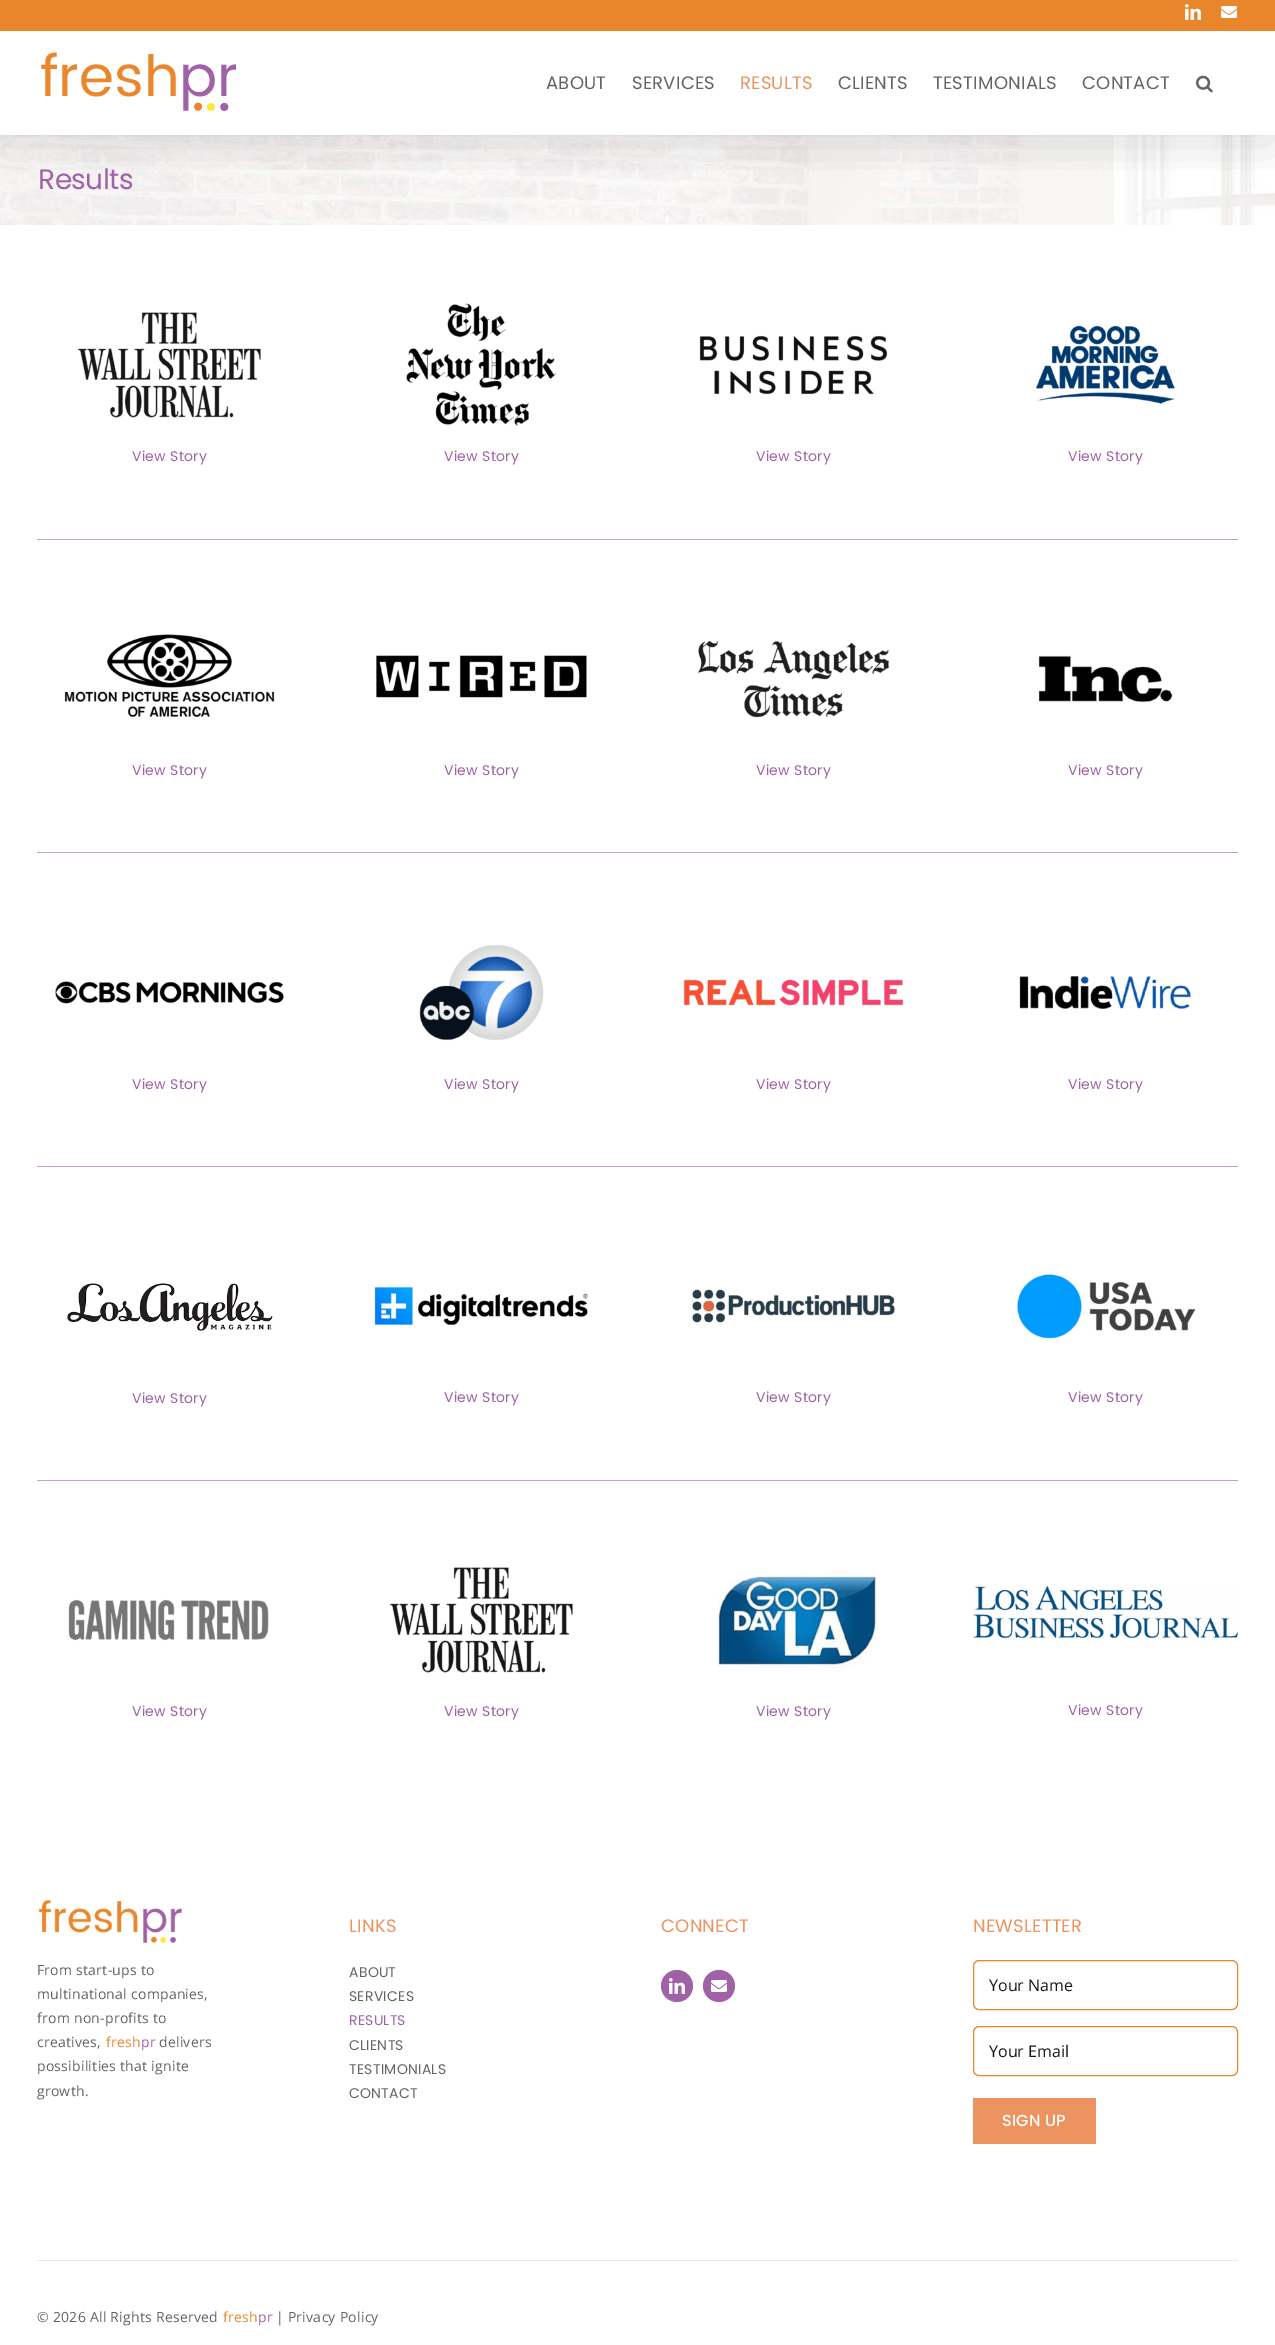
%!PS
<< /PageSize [1275 2345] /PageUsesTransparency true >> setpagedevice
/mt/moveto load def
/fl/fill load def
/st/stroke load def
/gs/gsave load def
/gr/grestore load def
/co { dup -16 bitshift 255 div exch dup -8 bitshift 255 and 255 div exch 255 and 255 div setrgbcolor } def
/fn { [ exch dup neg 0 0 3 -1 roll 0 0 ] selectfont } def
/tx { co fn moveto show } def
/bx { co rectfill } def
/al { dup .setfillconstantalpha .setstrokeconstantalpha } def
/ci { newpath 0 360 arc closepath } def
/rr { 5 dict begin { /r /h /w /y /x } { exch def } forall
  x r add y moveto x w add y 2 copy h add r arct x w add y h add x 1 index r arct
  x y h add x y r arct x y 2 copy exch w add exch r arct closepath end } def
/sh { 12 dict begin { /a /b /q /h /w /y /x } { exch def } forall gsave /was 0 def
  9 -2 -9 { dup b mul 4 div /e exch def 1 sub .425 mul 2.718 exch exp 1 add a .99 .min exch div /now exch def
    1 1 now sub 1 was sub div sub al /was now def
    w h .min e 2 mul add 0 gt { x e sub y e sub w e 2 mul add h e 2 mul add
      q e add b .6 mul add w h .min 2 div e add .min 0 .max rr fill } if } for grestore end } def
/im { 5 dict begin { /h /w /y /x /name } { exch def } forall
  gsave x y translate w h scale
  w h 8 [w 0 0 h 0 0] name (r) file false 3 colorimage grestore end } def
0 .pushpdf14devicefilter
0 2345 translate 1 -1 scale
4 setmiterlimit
0 0 1275 2345 16#FFFFFF bx
(media/5.raw) 0 135 1275 90 im
gs
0 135 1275 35 rectclip
16#000000 co
2 6 1271 137 0 25 .14 sh
gr
0 0 1275 31 16#E9862B bx
(media/1.raw) 1185 4 16 16 im
(media/2.raw) 1221 6 16 12 im
(media/3.raw) 41 52 195 59 im
(media/4.raw) 1196 75 17 18 im
(media/6.raw) 77 312 184 106 im
(media/7.raw) 406 303 151 123 im
(media/8.raw) 699 335 189 60 im
(media/9.raw) 1036 325 139 79 im
37 539 1201 1 16#C6A0CA bx
(media/10.raw) 64 634 211 84 im
(media/11.raw) 376 655 211 43 im
(media/12.raw) 697 640 193 78 im
(media/13.raw) 1038 613 135 132 im
37 852 1201 1 16#C6A0CA bx
(media/14.raw) 55 981 229 23 im
(media/15.raw) 419 945 125 96 im
(media/16.raw) 683 979 221 27 im
(media/17.raw) 1019 976 173 33 im
37 1166 1201 1 16#C6A0CA bx
(media/18.raw) 67 1283 206 48 im
(media/19.raw) 374 1287 214 38 im
(media/20.raw) 692 1289 203 34 im
(media/21.raw) 1017 1274 179 65 im
37 1480 1201 1 16#C6A0CA bx
(media/22.raw) 68 1599 201 42 im
(media/23.raw) 389 1567 184 106 im
(media/24.raw) 718 1571 158 101 im
(media/25.raw) 973 1586 265 53 im
(media/26.raw) 38 1899 145 44 im
16#A061A7 co
677 1986 16 ci fl
(media/27.raw) 669 1978 16 16 im
719 1986 16 ci fl
(media/28.raw) 711 1980 16 12 im
16#E9862B co
973.5 1960.5 264 49 5.5 rr st
973.5 2026.5 264 49 5.5 rr st
973 2098 123 46 16#EC9360 bx
37 2260 1201 1 16#E8E8E8 bx
/Poppins-Regular 18 fn
16#636363 co
546 89 mt .25 0 (ABOUT) ashow
632 89 mt .25 0 (SERVICES) ashow
16#EC9360 co
740 89 mt .25 0 (RESULTS) ashow
16#636363 co
838 89 mt .25 0 (CLIENTS) ashow
933 89 mt .25 0 (TESTIMONIALS) ashow
1082 89 mt .25 0 (CONTACT) ashow
/Poppins-Regular 28 fn
16#A061A7 co
38 189 mt -.5 0 (Results) ashow
/Poppins-Regular 14 fn
132 461 mt .25 0 (View Story) ashow
444 461 mt .25 0 (View Story) ashow
756 461 mt .25 0 (View Story) ashow
1068 461 mt .25 0 (View Story) ashow
132 775 mt .25 0 (View Story) ashow
444 775 mt .25 0 (View Story) ashow
756 775 mt .25 0 (View Story) ashow
1068 775 mt .25 0 (View Story) ashow
132 1089 mt .25 0 (View Story) ashow
444 1089 mt .25 0 (View Story) ashow
756 1089 mt .25 0 (View Story) ashow
1068 1089 mt .25 0 (View Story) ashow
132 1403 mt .25 0 (View Story) ashow
444 1402 mt .25 0 (View Story) ashow
756 1402 mt .25 0 (View Story) ashow
1068 1402 mt .25 0 (View Story) ashow
132 1716 mt .25 0 (View Story) ashow
444 1716 mt .25 0 (View Story) ashow
756 1716 mt .25 0 (View Story) ashow
1068 1715 mt .25 0 (View Story) ashow
/OpenSans-Regular 14 fn
16#636363 co
37 1975 mt .25 0 (From start-ups to) ashow
37 1999 mt .25 0 (multinational companies,) ashow
37 2023 mt .25 0 (from non-profits to) ashow
37 2047 mt .25 0 (creatives,) ashow
16#E9862B co
106 2047 mt .25 0 (fresh) ashow
16#A061A7 co
141 2047 mt .25 0 (pr) ashow
16#636363 co
159 2047 mt .25 0 (delivers) ashow
37 2071 mt .25 0 (possibilities that ignite) ashow
37 2096 mt .25 0 (growth.) ashow
/Poppins-Regular 18 fn
16#EC9360 co
349 1932 mt .25 0 (LINKS) ashow
/Poppins-Regular 14 fn
16#636363 co
349 1977 mt .25 0 (ABOUT) ashow
349 2001 mt .25 0 (SERVICES) ashow
16#A061A7 co
349 2025 mt .25 0 (RESULTS) ashow
16#636363 co
349 2050 mt .25 0 (CLIENTS) ashow
349 2074 mt .25 0 (TESTIMONIALS) ashow
349 2098 mt .25 0 (CONTACT) ashow
/Poppins-Regular 18 fn
16#EC9360 co
661 1932 mt .25 0 (CONNECT) ashow
973 1932 mt .25 0 (NEWSLETTER) ashow
(Your Name) 989 1991 /OpenSans-Regular 16 16#141617 tx
(Your Email) 989 2057 /OpenSans-Regular 16 16#141617 tx
/Poppins-Medium 16 fn
16#FFFFFF co
1002 2126 mt .25 0 (SIGN UP) ashow
/OpenSans-Regular 14 fn
16#636363 co
37 2322 mt .25 0 (© 2026 All Rights Reserved) ashow
16#E9862B co
223 2322 mt .25 0 (fresh) ashow
16#A061A7 co
258 2322 mt .25 0 (pr) ashow
16#636363 co
276 2322 mt .25 0 (| Privacy Policy) ashow
.poppdf14devicefilter showpage
